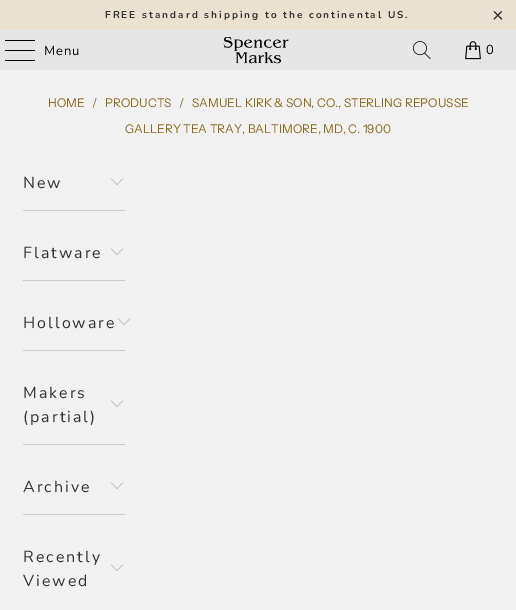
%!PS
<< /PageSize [516 610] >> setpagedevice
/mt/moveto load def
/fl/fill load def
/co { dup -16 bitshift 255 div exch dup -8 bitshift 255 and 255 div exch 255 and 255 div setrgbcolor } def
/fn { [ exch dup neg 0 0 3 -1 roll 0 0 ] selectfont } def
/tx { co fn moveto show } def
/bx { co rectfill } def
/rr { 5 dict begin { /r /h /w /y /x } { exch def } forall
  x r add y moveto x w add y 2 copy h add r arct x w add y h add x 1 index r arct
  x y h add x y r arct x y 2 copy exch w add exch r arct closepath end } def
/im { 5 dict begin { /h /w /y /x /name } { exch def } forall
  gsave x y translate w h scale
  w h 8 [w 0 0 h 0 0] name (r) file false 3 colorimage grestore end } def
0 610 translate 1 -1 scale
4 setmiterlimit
0 0 516 610 16#F1F1F1 bx
0 0 516 30 16#EAE1D1 bx
0 30 516 40 16#E6E6E6 bx
16#000000 co
5 40 30 1 .5 rr fl
5 50 30 1 .5 rr fl
5 60 30 1 .5 rr fl
(media/1.raw) 223 37 66 27 im
(media/2.raw) 413 41 18 18 im
(media/3.raw) 465 41 16 19 im
23 210 102 1 16#CCCCCC bx
(media/4.raw) 111 178 12 7 im
23 280 102 1 16#CCCCCC bx
(media/4.raw) 111 248 12 7 im
23 350 102 1 16#CCCCCC bx
(media/4.raw) 118 318 12 7 im
23 444 102 1 16#CCCCCC bx
(media/4.raw) 111 400 12 7 im
23 514 102 1 16#CCCCCC bx
(media/4.raw) 111 482 12 7 im
(media/4.raw) 111 564 12 7 im
/Nunito-Bold 10 fn
16#333333 co
105 18 mt 2 0 (FREE standard shipping to the continental US.) ashow
/LiberationSans-Regular 20 fn
492 22 mt 2 0 (×) ashow
/Nunito-Regular 13 fn
16#000000 co
44 55 mt 1 0 (Menu) ashow
486 54 mt 1 0 (0) ashow
(HOME) 48 107 /InstrumentSans-Regular 12 16#8B6A1B tx
(/) 92 107 /InstrumentSans-Regular 12 16#8B6A1B tx
(PRODUCTS) 105 107 /InstrumentSans-Regular 12 16#8B6A1B tx
(/) 179 107 /InstrumentSans-Regular 12 16#8B6A1B tx
(SAMUEL KIRK & SON, CO., STERLING REPOUSSE) 192 107 /InstrumentSans-Regular 12 16#8B6A1B tx
(GALLERY TEA TRAY, BALTIMORE, MD, C. 1900) 125 133 /InstrumentSans-Regular 12 16#8B6A1B tx
/Nunito-Regular 16 fn
16#333333 co
23 188 mt 2 0 (New) ashow
23 258 mt 2 0 (Flatware) ashow
23 328 mt 2 0 (Holloware) ashow
23 398 mt 2 0 (Makers) ashow
23 422 mt 2 0 (\(partial\)) ashow
23 492 mt 2 0 (Archive) ashow
23 562 mt 2 0 (Recently) ashow
23 586 mt 2 0 (Viewed) ashow
showpage
